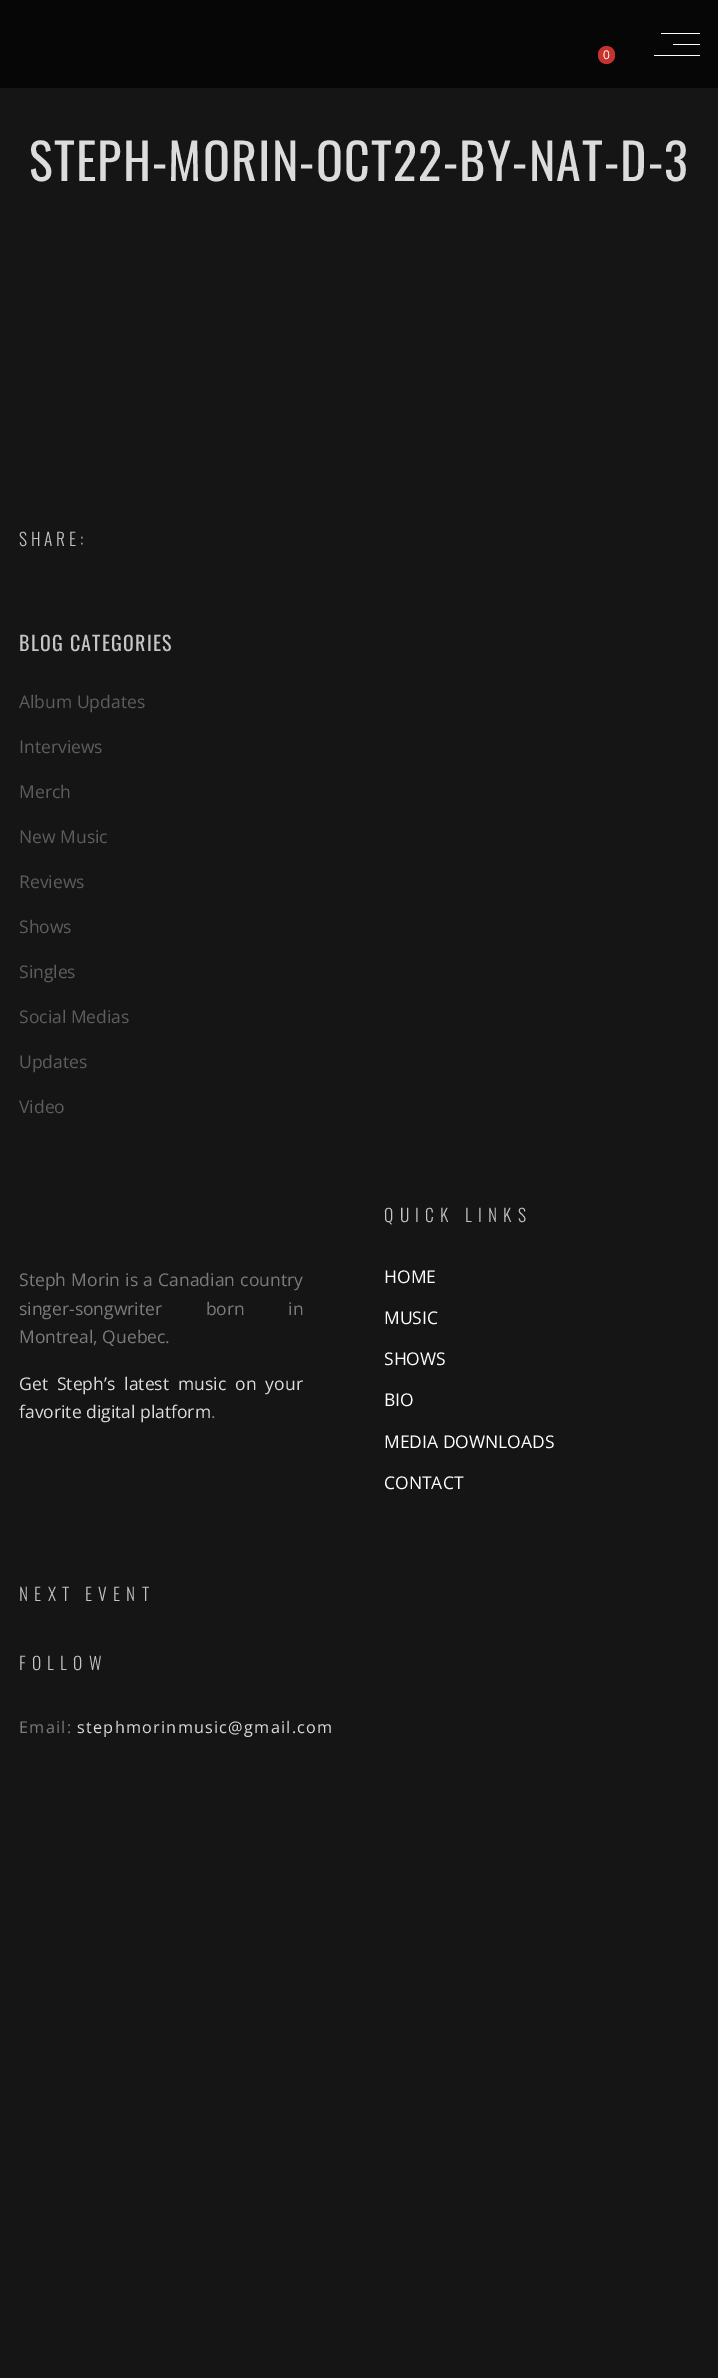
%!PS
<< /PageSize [718 2378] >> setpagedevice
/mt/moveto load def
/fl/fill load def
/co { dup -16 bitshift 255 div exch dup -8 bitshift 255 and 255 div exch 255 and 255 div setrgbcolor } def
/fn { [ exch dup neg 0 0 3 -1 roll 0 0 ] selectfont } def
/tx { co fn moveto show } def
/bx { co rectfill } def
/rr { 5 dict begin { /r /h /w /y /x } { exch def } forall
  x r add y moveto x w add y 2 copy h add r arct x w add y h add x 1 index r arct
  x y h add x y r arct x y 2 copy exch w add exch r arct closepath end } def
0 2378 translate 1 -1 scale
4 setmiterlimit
0 0 718 2378 16#151515 bx
0 0 718 88 16#060606 bx
16#C6322D co
598 46 17 18 8.5 rr fl
661 33 39 1 16#FFFFFF bx
673 44 27 1 16#FFFFFF bx
654 55 46 1 16#FFFFFF bx
(0) 603 59 /OpenSans-Regular 12 16#FFFFFF tx
/Oswald-Regular 50 fn
16#DCDCDC co
29 181 mt 1.25 0 (STEPH-MORIN-OCT22-BY-NAT-D-3) ashow
/Oswald-Light 17.5 fn
16#C5C5C5 co
19 546 mt 3.75 0 (SHARE:) ashow
/Oswald-Regular 20 fn
19 651 mt 1.25 0 (BLOG CATEGORIES) ashow
(Album Updates) 19 708 /OpenSans-Regular 17.5 16#5D5D5D tx
(Interviews) 19 753 /OpenSans-Regular 17.5 16#5D5D5D tx
(Merch) 19 798 /OpenSans-Regular 17.5 16#5D5D5D tx
(New Music) 19 843 /OpenSans-Regular 17.5 16#5D5D5D tx
(Reviews) 19 888 /OpenSans-Regular 17.5 16#5D5D5D tx
(Shows) 19 933 /OpenSans-Regular 17.5 16#5D5D5D tx
(Singles) 19 978 /OpenSans-Regular 17.5 16#5D5D5D tx
(Social Medias) 19 1023 /OpenSans-Regular 17.5 16#5D5D5D tx
(Updates) 19 1068 /OpenSans-Regular 17.5 16#5D5D5D tx
(Video) 19 1113 /OpenSans-Regular 17.5 16#5D5D5D tx
16#7B7B7B co
19 1286 mt .75 0 32 (Steph Morin is a Canadian country) widthshow
19 1315 mt 39 0 32 (singer-songwriter born in) widthshow
(Montreal, Quebec.) 19 1343 /OpenSans-Regular 17.5 16#7B7B7B tx
16#DCDCDC co
19 1390 mt 4.5 0 32 (Get Steph’s latest music on your) widthshow
(favorite digital platform) 19 1418 /OpenSans-Regular 17.5 16#DCDCDC tx
(.) 211 1418 /OpenSans-Regular 17.5 16#7B7B7B tx
/Oswald-Light 17.5 fn
16#C5C5C5 co
384 1222 mt 6.25 0 (QUICK LINKS) ashow
(HOME) 384 1283 /OpenSans-Regular 17.5 16#FFFFFF tx
(MUSIC) 384 1324 /OpenSans-Regular 17.5 16#FFFFFF tx
(SHOWS) 384 1365 /OpenSans-Regular 17.5 16#FFFFFF tx
(BIO) 384 1406 /OpenSans-Regular 17.5 16#FFFFFF tx
(MEDIA DOWNLOADS) 384 1448 /OpenSans-Regular 17.5 16#FFFFFF tx
(CONTACT) 384 1489 /OpenSans-Regular 17.5 16#FFFFFF tx
/Oswald-Light 17.5 fn
16#C5C5C5 co
19 1601 mt 6.25 0 (NEXT EVENT) ashow
19 1670 mt 6.25 0 (FOLLOW) ashow
/OpenSans-Regular 16.25 fn
16#7B7B7B co
19 1733 mt 1.25 0 (Email:) ashow
16#DCDCDC co
77 1733 mt 1.25 0 (stephmorinmusic@gmail.com) ashow
showpage
